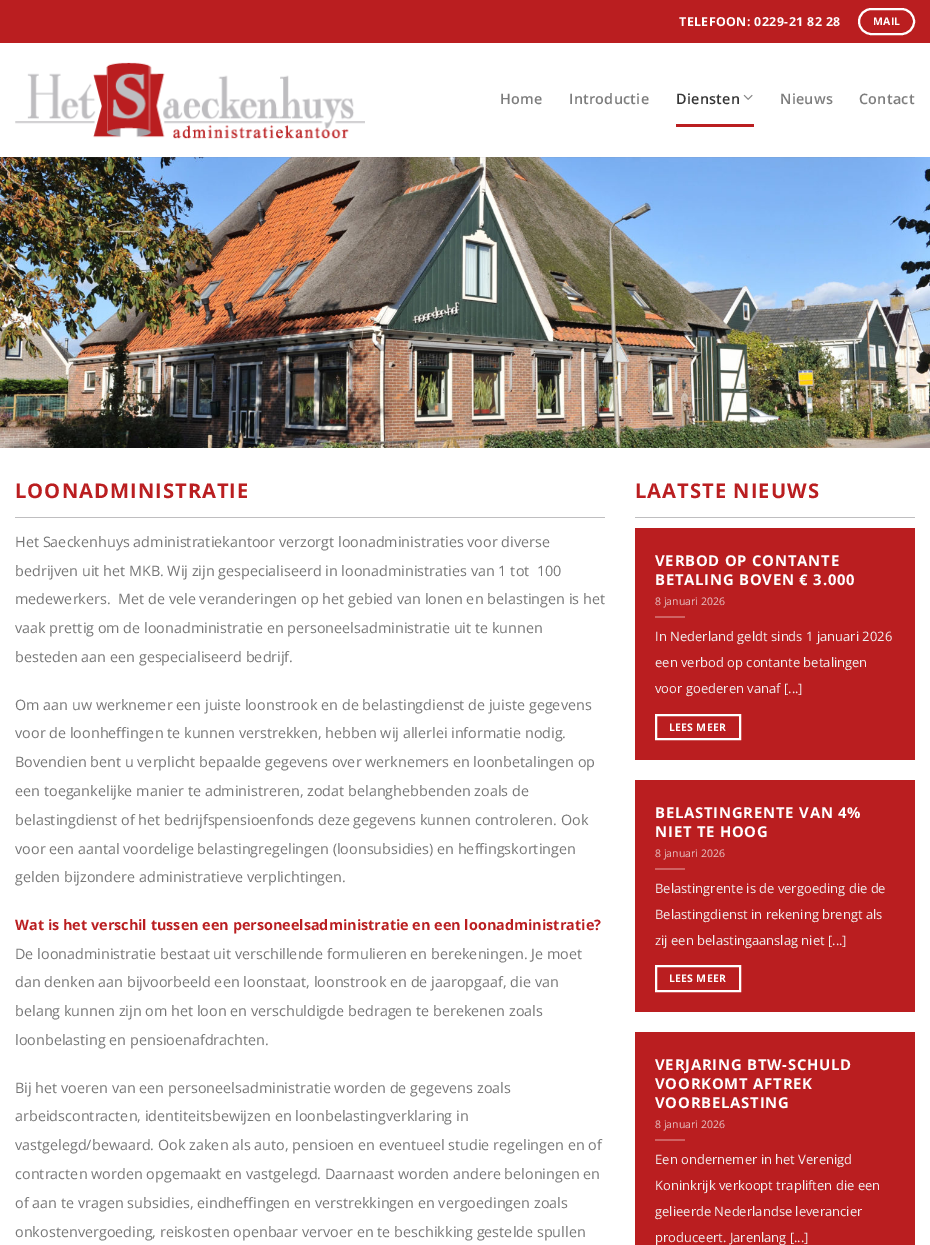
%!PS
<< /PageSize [930 1245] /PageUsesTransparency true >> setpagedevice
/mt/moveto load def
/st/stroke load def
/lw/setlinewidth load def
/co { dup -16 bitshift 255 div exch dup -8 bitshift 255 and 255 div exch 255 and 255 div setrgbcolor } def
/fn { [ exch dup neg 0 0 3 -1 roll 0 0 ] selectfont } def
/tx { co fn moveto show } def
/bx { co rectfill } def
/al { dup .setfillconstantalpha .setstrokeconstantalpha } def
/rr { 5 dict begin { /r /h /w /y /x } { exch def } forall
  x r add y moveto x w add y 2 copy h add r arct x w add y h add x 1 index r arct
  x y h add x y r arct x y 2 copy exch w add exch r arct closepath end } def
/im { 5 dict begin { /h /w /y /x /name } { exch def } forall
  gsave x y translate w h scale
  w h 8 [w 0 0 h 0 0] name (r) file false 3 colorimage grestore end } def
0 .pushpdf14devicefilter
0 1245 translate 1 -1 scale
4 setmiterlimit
0 0 930 1245 16#FFFFFF bx
0 0 930 43 16#BA1E20 bx
16#FFFFFF co
2 lw
859 9 55 25 12.5 rr st
(media/1.raw) 15 62 350 77 im
(media/2.raw) 743 94 10 6 im
676 124 78 3 16#BA1E20 bx
(media/3.raw) 0 157 930 291 im
0.1 al
15 157 900 1 16#777777 bx
1 al
15 517 590 1 16#BFBEC0 bx
635 517 280 1 16#BFBEC0 bx
635 528 280 232 16#BA1E20 bx
655 616 30 2 16#CF6263 bx
16#FFFFFF co
656 715 84 24 rectstroke
635 780 280 232 16#BA1E20 bx
655 868 30 2 16#CF6263 bx
16#FFFFFF co
656 966 84 25 rectstroke
635 1032 280 213 16#BA1E20 bx
655 1139 30 2 16#CF6263 bx
/OpenSans-Bold 12.4 fn
16#FFFFFF co
679 26 mt .4 0 (TELEFOON: 0229-21 82 28) ashow
/OpenSans-Bold 10.5 fn
873 25 mt .25 0 (MAIL) ashow
/OpenSans-SemiBold 14.4 fn
16#7D7D7D co
500 104 mt .25 0 (Home) ashow
569 104 mt .25 0 (Introductie) ashow
16#363636 co
676 104 mt .25 0 (Diensten) ashow
16#7D7D7D co
780 104 mt .25 0 (Nieuws) ashow
859 104 mt .25 0 (Contact) ashow
/OpenSans-Bold 20.2 fn
16#BA1E20 co
15 498 mt 1 0 (LOONADMINISTRATIE) ashow
(Het Saeckenhuys administratiekantoor verzorgt loonadministraties voor diverse) 15 547 /OpenSans-Regular 14.4 16#777777 tx
(bedrijven uit het MKB. Wij zijn gespecialiseerd in loonadministraties van 1 tot  100) 15 576 /OpenSans-Regular 14.4 16#777777 tx
(medewerkers.  Met de vele veranderingen op het gebied van lonen en belastingen is het) 15 604 /OpenSans-Regular 14.4 16#777777 tx
(vaak prettig om de loonadministratie en personeelsadministratie uit te kunnen) 15 633 /OpenSans-Regular 14.4 16#777777 tx
(besteden aan een gespecialiseerd bedrijf.) 15 662 /OpenSans-Regular 14.4 16#777777 tx
(Om aan uw werknemer een juiste loonstrook en de belastingdienst de juiste gegevens) 15 710 /OpenSans-Regular 14.4 16#777777 tx
(voor de loonheffingen te kunnen verstrekken, hebben wij allerlei informatie nodig.) 15 738 /OpenSans-Regular 14.4 16#777777 tx
(Bovendien bent u verplicht bepaalde gegevens over werknemers en loonbetalingen op) 15 767 /OpenSans-Regular 14.4 16#777777 tx
(een toegankelijke manier te administreren, zodat belanghebbenden zoals de) 15 796 /OpenSans-Regular 14.4 16#777777 tx
(belastingdienst of het bedrijfspensioenfonds deze gegevens kunnen controleren. Ook) 15 825 /OpenSans-Regular 14.4 16#777777 tx
(voor een aantal voordelige belastingregelingen \(loonsubsidies\) en heffingskortingen) 15 854 /OpenSans-Regular 14.4 16#777777 tx
(gelden bijzondere administratieve verplichtingen.) 15 882 /OpenSans-Regular 14.4 16#777777 tx
(Wat is het verschil tussen een personeelsadministratie en een loonadministratie?) 15 930 /OpenSans-Bold 14.4 16#BA1E20 tx
(De loonadministratie bestaat uit verschillende formulieren en berekeningen. Je moet) 15 959 /OpenSans-Regular 14.4 16#777777 tx
(dan denken aan bijvoorbeeld een loonstaat, loonstrook en de jaaropgaaf, die van) 15 987 /OpenSans-Regular 14.4 16#777777 tx
(belang kunnen zijn om het loon en verschuldigde bedragen te berekenen zoals) 15 1016 /OpenSans-Regular 14.4 16#777777 tx
(loonbelasting en pensioenafdrachten.) 15 1045 /OpenSans-Regular 14.4 16#777777 tx
(Bij het voeren van een personeelsadministratie worden de gegevens zoals) 15 1093 /OpenSans-Regular 14.4 16#777777 tx
(arbeidscontracten, identiteitsbewijzen en loonbelastingverklaring in) 15 1121 /OpenSans-Regular 14.4 16#777777 tx
(vastgelegd/bewaard. Ook zaken als auto, pensioen en eventueel studie regelingen en of) 15 1150 /OpenSans-Regular 14.4 16#777777 tx
(contracten worden opgemaakt en vastgelegd. Daarnaast worden andere beloningen en) 15 1179 /OpenSans-Regular 14.4 16#777777 tx
(of aan te vragen subsidies, eindheffingen en verstrekkingen en vergoedingen zoals) 15 1208 /OpenSans-Regular 14.4 16#777777 tx
(onkostenvergoeding, reiskosten openbaar vervoer en te beschikking gestelde spullen) 15 1237 /OpenSans-Regular 14.4 16#777777 tx
/OpenSans-Bold 20.2 fn
16#BA1E20 co
635 498 mt 1 0 (LAATSTE NIEUWS) ashow
/OpenSans-Bold 14.9 fn
16#FFFFFF co
655 566 mt .75 0 (VERBOD OP CONTANTE) ashow
655 585 mt .75 0 (BETALING BOVEN € 3.000) ashow
(8 januari 2026) 655 605 /OpenSans-Regular 10.5 16#E6C7C7 tx
(In Nederland geldt sinds 1 januari 2026) 655 641 /OpenSans-Regular 13 16#F1F1F1 tx
(een verbod op contante betalingen) 655 667 /OpenSans-Regular 13 16#F1F1F1 tx
(voor goederen vanaf [...]) 655 693 /OpenSans-Regular 13 16#F1F1F1 tx
/OpenSans-Bold 10.5 fn
16#FFFFFF co
669 731 mt .25 0 (LEES MEER) ashow
/OpenSans-Bold 14.9 fn
655 818 mt .75 0 (BELASTINGRENTE VAN 4%) ashow
655 837 mt .75 0 (NIET TE HOOG) ashow
(8 januari 2026) 655 857 /OpenSans-Regular 10.5 16#E6C7C7 tx
(Belastingrente is de vergoeding die de) 655 893 /OpenSans-Regular 13 16#F1F1F1 tx
(Belastingdienst in rekening brengt als) 655 919 /OpenSans-Regular 13 16#F1F1F1 tx
(zij een belastingaanslag niet [...]) 655 945 /OpenSans-Regular 13 16#F1F1F1 tx
/OpenSans-Bold 10.5 fn
16#FFFFFF co
669 982 mt .25 0 (LEES MEER) ashow
/OpenSans-Bold 14.9 fn
655 1070 mt .75 0 (VERJARING BTW-SCHULD) ashow
655 1089 mt .75 0 (VOORKOMT AFTREK) ashow
655 1108 mt .75 0 (VOORBELASTING) ashow
(8 januari 2026) 655 1128 /OpenSans-Regular 10.5 16#E6C7C7 tx
(Een ondernemer in het Verenigd) 655 1164 /OpenSans-Regular 13 16#F1F1F1 tx
(Koninkrijk verkoopt trapliften die een) 655 1190 /OpenSans-Regular 13 16#F1F1F1 tx
(gelieerde Nederlandse leverancier) 655 1216 /OpenSans-Regular 13 16#F1F1F1 tx
(produceert. Jarenlang [...]) 655 1242 /OpenSans-Regular 13 16#F1F1F1 tx
.poppdf14devicefilter showpage
